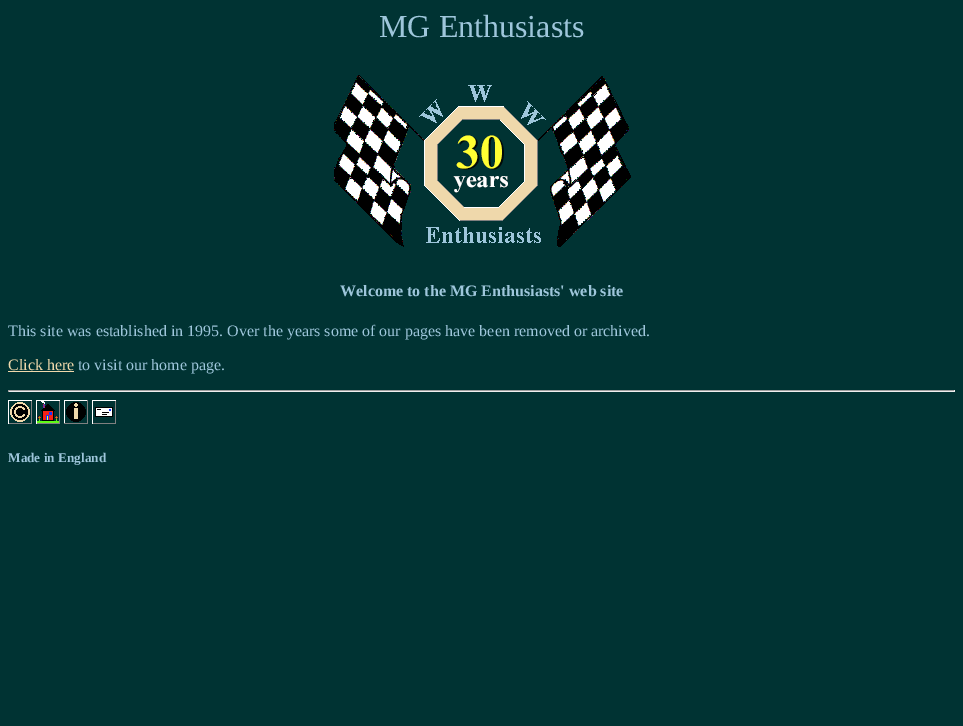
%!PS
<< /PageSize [963 726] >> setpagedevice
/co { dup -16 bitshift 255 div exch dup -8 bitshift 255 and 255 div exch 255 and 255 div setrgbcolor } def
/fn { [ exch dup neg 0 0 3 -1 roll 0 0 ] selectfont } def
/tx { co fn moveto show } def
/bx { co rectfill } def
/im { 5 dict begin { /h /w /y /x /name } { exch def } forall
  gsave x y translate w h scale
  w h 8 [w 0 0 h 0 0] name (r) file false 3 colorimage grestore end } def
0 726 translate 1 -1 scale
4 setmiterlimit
0 0 963 726 16#003333 bx
(media/1.raw) 334 75 297 172 im
8 371 66 1 16#EFD8AB bx
8 390 947 1 16#9F9F9F bx
954 390 1 2 16#EEEEEE bx
8 391 947 1 16#EEEEEE bx
8 390 1 2 16#9F9F9F bx
(media/2.raw) 8 400 24 24 im
(media/3.raw) 36 400 24 24 im
(media/4.raw) 64 400 24 24 im
(media/5.raw) 92 400 24 24 im
(MG Enthusiasts) 379 37 /LiberationSerif-Regular 32 16#9EC6DB tx
(Welcome to the MG Enthusiasts' web site) 340 296 /LiberationSerif-Bold 16 16#9EC6DB tx
(This site was established in 1995. Over the years some of our pages have been removed or archived.) 8 336 /LiberationSerif-Regular 16 16#9EC6DB tx
(Click here) 8 370 /LiberationSerif-Regular 16 16#EFD8AB tx
(to visit our home page.) 78 370 /LiberationSerif-Regular 16 16#9EC6DB tx
(Made in England) 8 462 /LiberationSerif-Bold 13.25 16#9EC6DB tx
showpage
